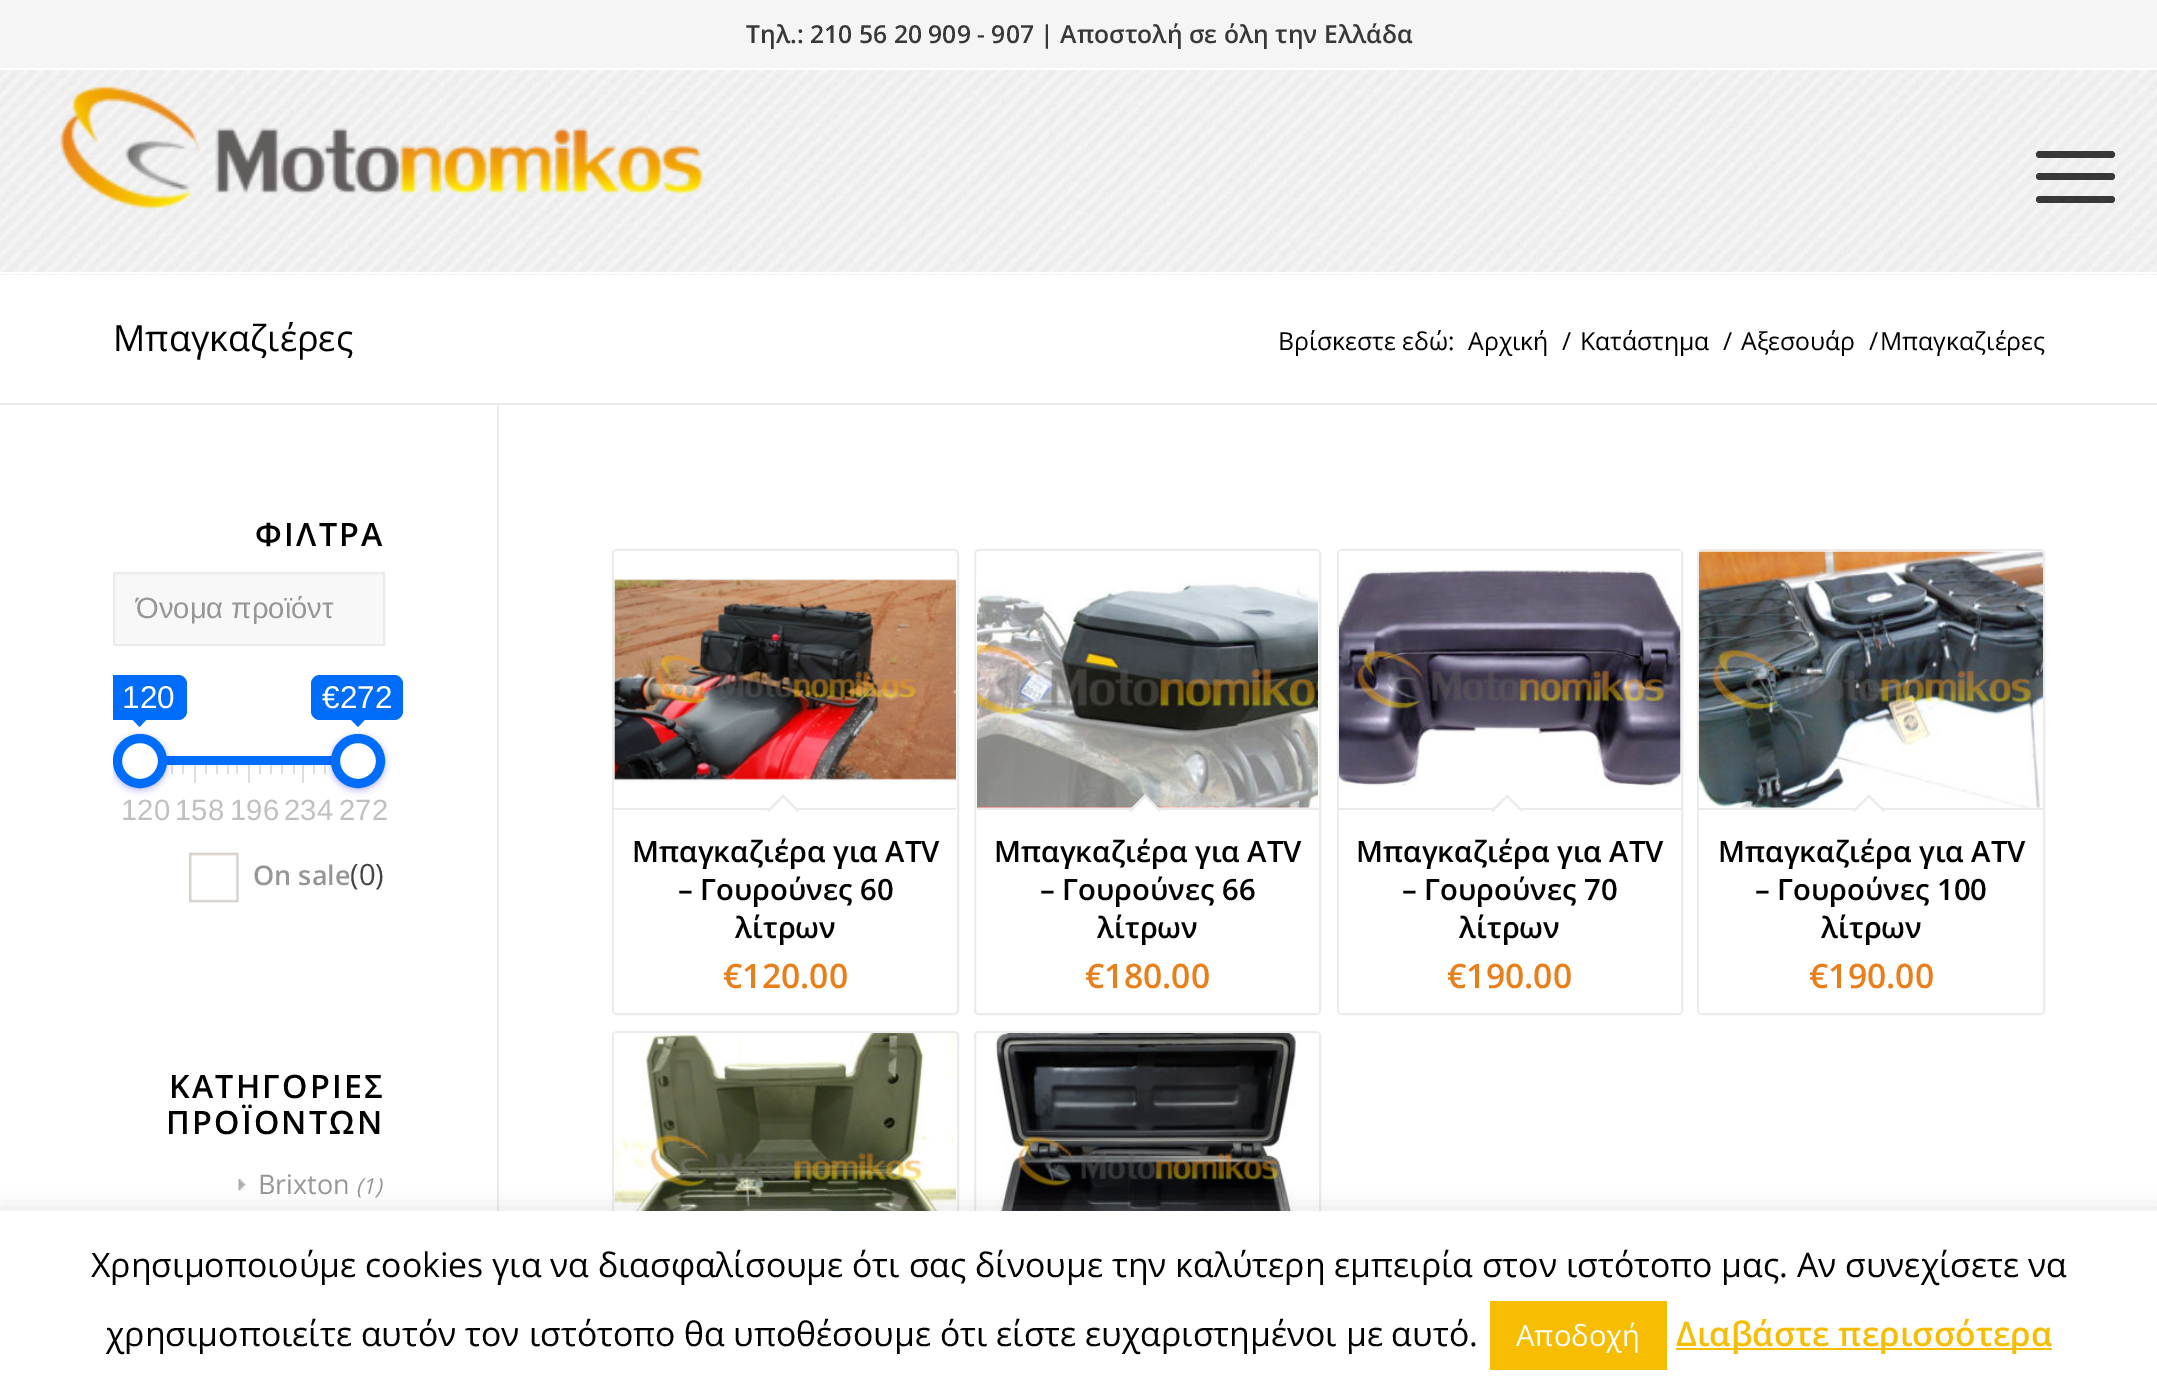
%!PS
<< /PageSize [2157 1397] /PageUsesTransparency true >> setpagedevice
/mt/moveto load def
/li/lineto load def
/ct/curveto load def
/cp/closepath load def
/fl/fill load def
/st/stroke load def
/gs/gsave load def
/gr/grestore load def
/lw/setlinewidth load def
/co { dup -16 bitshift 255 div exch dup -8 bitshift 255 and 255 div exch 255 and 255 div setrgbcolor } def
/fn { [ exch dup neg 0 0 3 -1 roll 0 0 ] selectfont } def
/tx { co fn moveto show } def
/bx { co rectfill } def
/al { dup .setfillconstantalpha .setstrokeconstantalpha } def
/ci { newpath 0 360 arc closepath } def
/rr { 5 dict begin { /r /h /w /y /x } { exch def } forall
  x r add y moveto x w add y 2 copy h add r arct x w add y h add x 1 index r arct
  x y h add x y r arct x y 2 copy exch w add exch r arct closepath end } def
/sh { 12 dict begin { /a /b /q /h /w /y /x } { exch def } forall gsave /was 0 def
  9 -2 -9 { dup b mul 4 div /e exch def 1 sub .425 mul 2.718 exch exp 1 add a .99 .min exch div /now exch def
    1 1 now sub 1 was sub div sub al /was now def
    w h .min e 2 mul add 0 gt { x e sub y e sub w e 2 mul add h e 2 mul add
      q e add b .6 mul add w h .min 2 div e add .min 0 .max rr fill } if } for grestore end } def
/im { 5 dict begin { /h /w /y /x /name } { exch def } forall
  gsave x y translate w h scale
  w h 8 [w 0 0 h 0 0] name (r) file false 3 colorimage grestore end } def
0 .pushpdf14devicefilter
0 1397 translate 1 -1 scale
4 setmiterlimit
0 0 2157 1397 16#FFFFFF bx
0 0 2157 68 16#F5F5F5 bx
0 70 2157 205 16#F5F5F5 bx
(media/1.raw) 0 70 2157 205 im
0 272 2157 2 16#FFFFFF bx
(media/2.raw) 60 85 643 125 im
16#383838 co
2036 173 79 7 3.5 rr fl
2036 151 79 7 3.5 rr fl
2036 196 79 7 3.5 rr fl
0 403 2157 2 16#EBEBEB bx
16#F8F8F8 co
114 573 mt 384 573 li 384 645 li 114 645 li cp gs fl gr
16#EBEBEB co
2 lw
st
16#006CFA co
113 675 mt 178 675 li 183 675 187 679 187 684 ct 187 711 li 187 716 183 720 178 720 ct 113 720 li cp fl
133 720 mt 146 720 li 139.5 727 li cp fl
311 675 92 45 9 rr fl
351 720 mt 364.5 720 li 358 727 li cp fl
166 756 166 9 16#006CFA bx
171 765 2 9 16#DEDEDE bx
gs
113 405 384 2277 rectclip
16#0000FF co
113 736 54 54 27 3.5 .3 sh
gr
16#FFFFFF co
140 761 22.5 ci gs fl gr
16#006CFA co
9 lw
st
324 765 2 9 16#DEDEDE bx
16#0000FF co
331 736 54 54 27 3.5 .3 sh
16#FFFFFF co
358 761 22.5 ci gs fl gr
16#006CFA co
st
182 765 2 9 16#DEDEDE bx
194 765 2 18 16#DEDEDE bx
205 765 2 9 16#DEDEDE bx
216 765 2 9 16#DEDEDE bx
227 765 2 9 16#DEDEDE bx
236 765 2 9 16#DEDEDE bx
248 765 2 18 16#DEDEDE bx
259 765 2 9 16#DEDEDE bx
270 765 2 9 16#DEDEDE bx
281 765 2 9 16#DEDEDE bx
293 765 2 9 16#DEDEDE bx
302 765 2 18 16#DEDEDE bx
313 765 2 9 16#DEDEDE bx
(media/3.raw) 189 852 50 51 im
(media/4.raw) 238 1179 8 12 im
497 405 2 806 16#EBEBEB bx
2 lw
613 550 345 464 4 rr st
16#FFFFFF co
616 551 mt 954 551 li 955 551 956 552 956 553 ct 956 808 li 614 808 li 614 553 li 614 552 615 551 616 551 ct cp fl
(media/5.raw) 614 578 342 203 im
614 808 mt 956 808 li 956 1011 li 956 1012 955 1013 954 1013 ct 616 1013 li 615 1013 614 1012 614 1011 ct cp fl
614 808 342 2 16#EBEBEB bx
16#FFFFFF co
783 794.5 mt 799 810.5 li 783 826.5 li 767 810.5 li cp fl
16#EBEBEB co
783 794.5 mt 799 810.5 li 797.5 812 li 781.5 796 li cp fl
783 794.5 mt 784.5 796 li 769 812 li 767 810.5 li cp fl
975 550 345 464 4 rr st
16#FFFFFF co
979 551 mt 1317 551 li 1318 551 1319 552 1319 553 ct 1319 808 li 977 808 li 977 553 li 977 552 978 551 979 551 ct cp fl
(media/6.raw) 976 579 343 229 im
977 808 mt 1319 808 li 1319 1011 li 1319 1012 1318 1013 1317 1013 ct 979 1013 li 978 1013 977 1012 977 1011 ct cp fl
977 808 342 2 16#EBEBEB bx
16#FFFFFF co
1145 794.5 mt 1161 810.5 li 1145 826.5 li 1129 810.5 li cp fl
16#EBEBEB co
1145 794.5 mt 1161 810.5 li 1159.5 812 li 1143.5 796 li cp fl
1145 794.5 mt 1146.5 796 li 1131 812 li 1129 810.5 li cp fl
1338 550 344 464 4 rr st
16#FFFFFF co
1341 551 mt 1679 551 li 1680 551 1681 552 1681 553 ct 1681 808 li 1339 808 li 1339 553 li 1339 552 1340 551 1341 551 ct cp fl
(media/7.raw) 1339 569 342 219 im
1339 808 mt 1681 808 li 1681 1011 li 1681 1012 1680 1013 1679 1013 ct 1341 1013 li 1340 1013 1339 1012 1339 1011 ct cp fl
1339 808 342 2 16#EBEBEB bx
16#FFFFFF co
1507 794.5 mt 1523 810.5 li 1507 826.5 li 1491 810.5 li cp fl
16#EBEBEB co
1507 794.5 mt 1523 810.5 li 1521.5 812 li 1505.5 796 li cp fl
1507 794.5 mt 1508.5 796 li 1493 812 li 1491 810.5 li cp fl
1698 550 346 464 4 rr st
16#FFFFFF co
1701 551 mt 2041 551 li 2042 551 2043 552 2043 553 ct 2043 808 li 1699 808 li 1699 553 li 1699 552 1700 551 1701 551 ct cp fl
(media/8.raw) 1699 551 344 257 im
1699 808 mt 2043 808 li 2043 1011 li 2043 1012 2042 1013 2041 1013 ct 1701 1013 li 1700 1013 1699 1012 1699 1011 ct cp fl
1699 808 344 2 16#EBEBEB bx
16#FFFFFF co
1869 794.5 mt 1885 810.5 li 1869 826.5 li 1853 810.5 li cp fl
16#EBEBEB co
1869 794.5 mt 1885 810.5 li 1883.5 812 li 1867.5 796 li cp fl
1869 794.5 mt 1870.5 796 li 1854.5 812 li 1853 810.5 li cp fl
613 1032 345 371 4 rr st
16#FFFFFF co
616 1033 mt 954 1033 li 955 1033 956 1034 956 1035 ct 956 1289 li 614 1289 li 614 1035 li 614 1034 615 1033 616 1033 ct cp fl
(media/9.raw) 614 1033 342 178 im
16#EBEBEB co
975 1032 345 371 4 rr st
16#FFFFFF co
979 1033 mt 1317 1033 li 1318 1033 1319 1034 1319 1035 ct 1319 1289 li 977 1289 li 977 1035 li 977 1034 978 1033 979 1033 ct cp fl
(media/10.raw) 977 1033 324 178 im
16#ACABAB co
0 1208 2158 187 0 11 .3 sh
0 1211 2157 186 16#FFFFFF bx
1490 1301 177 69 16#F7BD02 bx
1676 1348 376 2 16#F7BD02 bx
(Τηλ.: 210 56 20 909 - 907 | Αποστολή σε όλη την Ελλάδα) 746 43 /OpenSans-SemiBold 24.75 16#383838 tx
(Μπαγκαζιέρες) 113 351 /OpenSans-Regular 36 16#000000 tx
(Βρίσκεστε εδώ:) 1278 350 /OpenSans-Regular 24.75 16#000000 tx
(Αρχική) 1468 350 /OpenSans-Regular 24.75 16#000000 tx
(/) 1562 350 /OpenSans-Regular 24.75 16#000000 tx
(Κατάστημα) 1580 350 /OpenSans-Regular 24.75 16#000000 tx
(/) 1723 350 /OpenSans-Regular 24.75 16#000000 tx
(Αξεσουάρ) 1741 350 /OpenSans-Regular 24.75 16#000000 tx
(/) 1869 350 /OpenSans-Regular 24.75 16#000000 tx
(Μπαγκαζιέρες) 1880 350 /OpenSans-Regular 24.75 16#000000 tx
/OpenSans-SemiBold 32.25 fn
255 546 mt 2.25 0 (ΦΙΛΤΡΑ) ashow
(Όνομα προϊόντ) 136 618 /LiberationSans-Regular 29.25 16#969696 tx
(120) 122 708 /LiberationSans-Regular 31.5 16#FFFFFF tx
(€272) 322 708 /LiberationSans-Regular 31.5 16#FFFFFF tx
(120) 121 820 /LiberationSans-Regular 29.25 16#C0C0C0 tx
(158) 175 820 /LiberationSans-Regular 29.25 16#C0C0C0 tx
(196) 230 820 /LiberationSans-Regular 29.25 16#C0C0C0 tx
(234) 284 820 /LiberationSans-Regular 29.25 16#C0C0C0 tx
(272) 339 820 /LiberationSans-Regular 29.25 16#C0C0C0 tx
(On sale) 253 885 /OpenSans-SemiBold 27 16#969696 tx
(\(0\)) 350 885 /OpenSans-Regular 29.25 16#444444 tx
/OpenSans-SemiBold 32.25 fn
16#000000 co
169 1098 mt 2.25 0 (ΚΑΤΗΓΟΡΙΕΣ) ashow
166 1134 mt 2.25 0 (ΠΡΟΪΟΝΤΩΝ) ashow
(Brixton) 258 1194 /OpenSans-Regular 27 16#969696 tx
(\(1\)) 356 1194 /OpenSans-Italic 22 16#969696 tx
(Μπαγκαζιέρα για ATV) 632 862 /OpenSans-SemiBold 29.25 16#000000 tx
(– Γουρούνες 60) 678 900 /OpenSans-SemiBold 29.25 16#000000 tx
(λίτρων) 735 938 /OpenSans-SemiBold 29.25 16#000000 tx
(€120.00) 723 988 /OpenSans-SemiBold 33.75 16#EA7E19 tx
(Μπαγκαζιέρα για ATV) 994 862 /OpenSans-SemiBold 29.25 16#000000 tx
(– Γουρούνες 66) 1040 900 /OpenSans-SemiBold 29.25 16#000000 tx
(λίτρων) 1097 938 /OpenSans-SemiBold 29.25 16#000000 tx
(€180.00) 1085 988 /OpenSans-SemiBold 33.75 16#EA7E19 tx
(Μπαγκαζιέρα για ATV) 1356 862 /OpenSans-SemiBold 29.25 16#000000 tx
(– Γουρούνες 70) 1402 900 /OpenSans-SemiBold 29.25 16#000000 tx
(λίτρων) 1459 938 /OpenSans-SemiBold 29.25 16#000000 tx
(€190.00) 1447 988 /OpenSans-SemiBold 33.75 16#EA7E19 tx
(Μπαγκαζιέρα για ATV) 1718 862 /OpenSans-SemiBold 29.25 16#000000 tx
(– Γουρούνες 100) 1755 900 /OpenSans-SemiBold 29.25 16#000000 tx
(λίτρων) 1821 938 /OpenSans-SemiBold 29.25 16#000000 tx
(€190.00) 1809 988 /OpenSans-SemiBold 33.75 16#EA7E19 tx
(Χρησιμοποιούμε cookies για να διασφαλίσουμε ότι σας δίνουμε την καλύτερη εμπειρία στον ιστότοπο μας. Αν συνεχίσετε να) 91 1277 /OpenSans-Regular 33.75 16#000000 tx
(χρησιμοποιείτε αυτόν τον ιστότοπο θα υποθέσουμε ότι είστε ευχαριστημένοι με αυτό.) 106 1346 /OpenSans-Regular 33.75 16#000000 tx
(Αποδοχή) 1516 1346 /OpenSans-Regular 29.25 16#FFFFFF tx
(Διαβάστε περισσότερα) 1676 1346 /OpenSans-SemiBold 33.75 16#F7BD02 tx
.poppdf14devicefilter showpage
